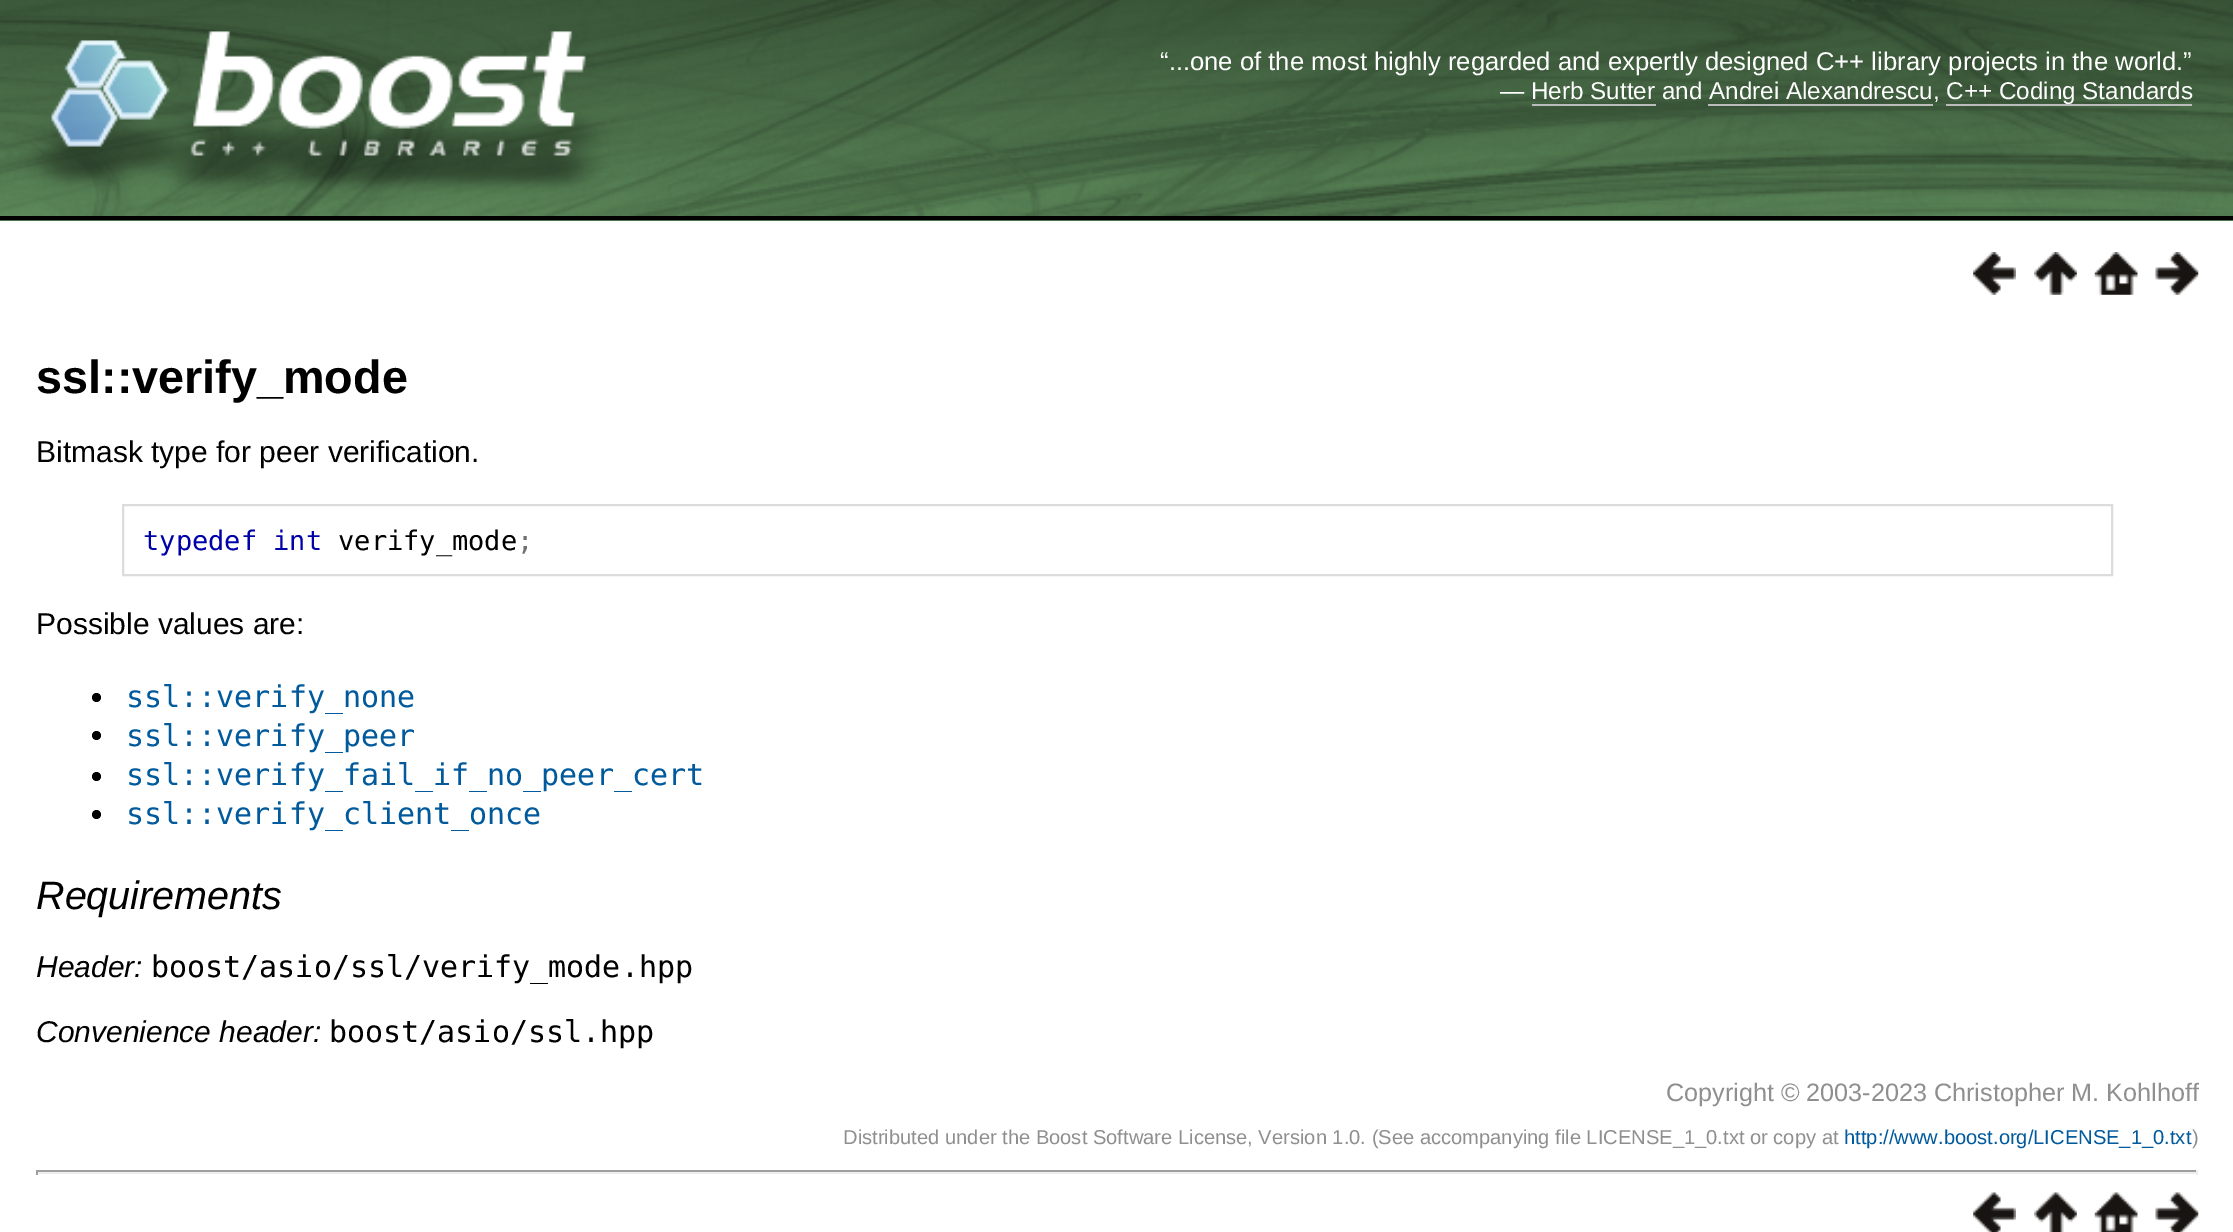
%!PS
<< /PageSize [2233 1232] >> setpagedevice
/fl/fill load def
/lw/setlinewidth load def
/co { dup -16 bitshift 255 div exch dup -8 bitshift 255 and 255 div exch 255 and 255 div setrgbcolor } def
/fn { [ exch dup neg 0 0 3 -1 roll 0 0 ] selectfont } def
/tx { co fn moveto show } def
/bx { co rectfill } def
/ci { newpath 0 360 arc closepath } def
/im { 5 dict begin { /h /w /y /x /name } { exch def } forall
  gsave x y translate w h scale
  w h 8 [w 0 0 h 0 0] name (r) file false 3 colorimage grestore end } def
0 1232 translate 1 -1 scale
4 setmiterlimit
0 0 2233 1232 16#FFFFFF bx
0 220 2233 1 16#4F744D bx
0 216 2233 4 16#000000 bx
(media/1.raw) 0 0 2233 216 im
1532 104 124 2 16#BBBBBB bx
1708 104 225 2 16#BBBBBB bx
1946 104 246 2 16#BBBBBB bx
(media/2.raw) 1973 252 43 43 im
(media/3.raw) 2034 252 43 43 im
(media/4.raw) 2094 252 44 43 im
(media/5.raw) 2155 252 44 43 im
16#DCDCDC co
2 lw
123 505 1989 70 rectstroke
16#000000 co
96.5 697.5 4.5 ci fl
96.5 735.5 4.5 ci fl
96.5 776.5 4.5 ci fl
96.5 814.5 4.5 ci fl
36 1170 2162 2 16#9F9F9F bx
2196 1170 2 5 16#EEEEEE bx
36 1172 2162 2 16#EEEEEE bx
36 1170 2 5 16#9F9F9F bx
(media/6.raw) 1973 1192 43 40 im
(media/7.raw) 2034 1192 43 40 im
(media/8.raw) 2094 1192 44 40 im
(media/9.raw) 2155 1192 44 40 im
(“...one of the most highly regarded and expertly designed C++ library projects in the) 1160 70 /LiberationSans-Regular 25.65 16#FFFFFF tx
(world.”) 2115 70 /LiberationSans-Regular 25.65 16#FFFFFF tx
(— Herb Sutter and Andrei Alexandrescu, C++ Coding Standards) 1500 99 /LiberationSans-Regular 24.25 16#FFFFFF tx
(ssl::verify_mode) 36 393 /LiberationSans-Bold 46.75 16#000000 tx
(Bitmask type for peer verification.) 36 462 /LiberationSans-Regular 30 16#000000 tx
(typedef int) 143 550 /DejaVuSansMono-Regular 27 16#0000AA tx
(verify_mode) 338 550 /DejaVuSansMono-Regular 27 16#000000 tx
(;) 517 550 /DejaVuSansMono-Regular 27 16#707070 tx
(Possible values are:) 36 634 /LiberationSans-Regular 30 16#000000 tx
(ssl::verify_none) 126 707 /DejaVuSansMono-Regular 30 16#005A9C tx
(ssl::verify_peer) 126 746 /DejaVuSansMono-Regular 30 16#005A9C tx
(ssl::verify_fail_if_no_peer_cert) 126 785 /DejaVuSansMono-Regular 30 16#005A9C tx
(ssl::verify_client_once) 126 824 /DejaVuSansMono-Regular 30 16#005A9C tx
(Requirements) 36 909 /LiberationSans-Italic 39.5 16#000000 tx
(Header:) 36 977 /LiberationSans-Italic 30 16#000000 tx
(boost/asio/ssl/verify_mode.hpp) 151 977 /DejaVuSansMono-Regular 30 16#000000 tx
(Convenience header:) 36 1042 /LiberationSans-Italic 30 16#000000 tx
(boost/asio/ssl.hpp) 329 1042 /DejaVuSansMono-Regular 30 16#000000 tx
(Copyright © 2003-2023 Christopher M. Kohlhoff) 1666 1101 /LiberationSans-Regular 25.2 16#8F8F8F tx
(Distributed under the Boost Software License, Version 1.0. \(See accompanying) 843 1144 /LiberationSans-Regular 20.15 16#8F8F8F tx
(file LICENSE_1_0.txt or copy at) 1555 1144 /LiberationSans-Regular 20.15 16#8F8F8F tx
(http://www.boost.org/LICENSE_1_0.txt) 1844 1144 /LiberationSans-Regular 20.15 16#005A9C tx
(\)) 2192 1144 /LiberationSans-Regular 20.15 16#8F8F8F tx
showpage
